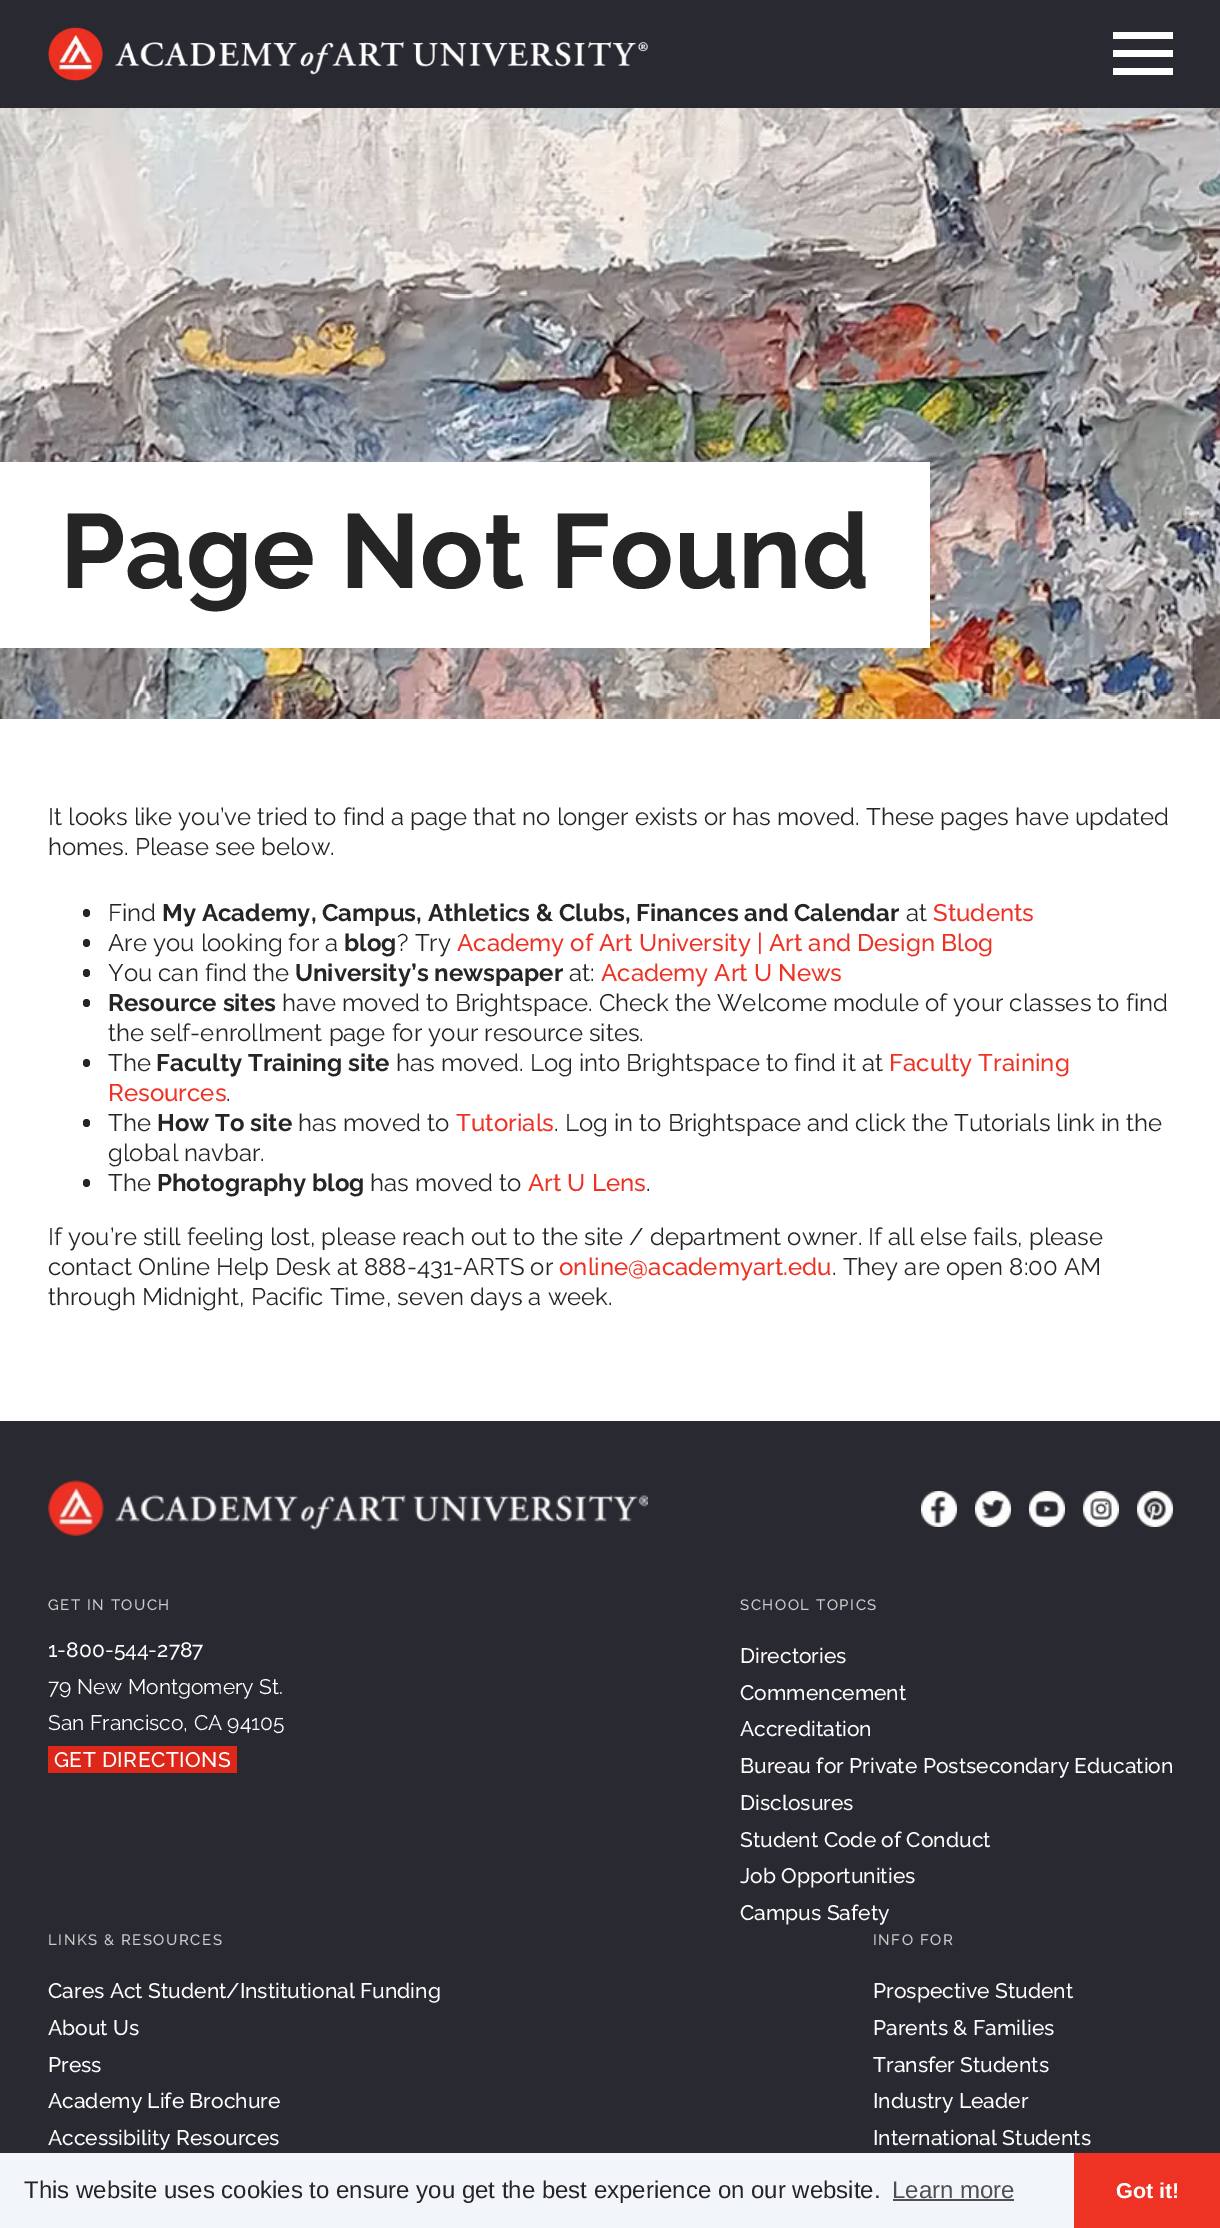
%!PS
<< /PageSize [1220 2228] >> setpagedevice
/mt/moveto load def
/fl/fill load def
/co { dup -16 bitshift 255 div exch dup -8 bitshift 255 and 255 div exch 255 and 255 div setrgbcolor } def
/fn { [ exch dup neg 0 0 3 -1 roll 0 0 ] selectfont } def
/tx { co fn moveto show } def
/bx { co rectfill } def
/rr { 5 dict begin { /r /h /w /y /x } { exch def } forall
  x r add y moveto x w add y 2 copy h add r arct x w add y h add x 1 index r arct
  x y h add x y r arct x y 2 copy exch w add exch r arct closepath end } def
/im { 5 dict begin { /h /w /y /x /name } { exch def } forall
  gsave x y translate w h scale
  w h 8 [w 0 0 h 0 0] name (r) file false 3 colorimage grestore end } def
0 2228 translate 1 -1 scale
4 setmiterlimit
0 0 1220 2228 16#292931 bx
(media/1.raw) 48 27 600 54 im
1113 32 60 7 16#FFFFFF bx
1113 50 60 7 16#FFFFFF bx
1113 68 60 7 16#FFFFFF bx
0 719 1220 702 16#FFFFFF bx
(media/2.raw) 0 108 1220 611 im
0 462 930 186 16#FFFFFF bx
16#252525 co
83 909 7 8 3.5 rr fl
83 939 7 8 3.5 rr fl
83 969 7 8 3.5 rr fl
83 999 7 8 3.5 rr fl
83 1059 7 8 3.5 rr fl
83 1119 7 8 3.5 rr fl
83 1179 7 8 3.5 rr fl
(media/3.raw) 48 1480 600 56 im
(media/4.raw) 921 1491 36 36 im
(media/5.raw) 975 1491 36 36 im
(media/6.raw) 1029 1491 36 36 im
(media/7.raw) 1083 1491 36 36 im
(media/8.raw) 1137 1491 36 36 im
48 1746 189 27 16#DD271A bx
0 2153 1074 75 16#F2F5F9 bx
893 2199 121 2 16#4E4F4F bx
1074 2153 146 75 16#EE3224 bx
(Page Not Found) 60 588 /Raleway-Bold 105 16#252525 tx
(It looks like you’ve tried to find a page that no longer exists or has moved. These pages have updated) 48 825 /Raleway-Regular 24 16#252525 tx
(homes. Please see below.) 48 855 /Raleway-Regular 24 16#252525 tx
(Find) 108 921 /Raleway-Regular 24 16#252525 tx
(My Academy, Campus, Athletics & Clubs, Finances and Calendar) 162 921 /Raleway-Bold 24 16#252525 tx
(at) 906 921 /Raleway-Regular 24 16#252525 tx
(Students) 933 921 /Raleway-Medium 24 16#EE3224 tx
(Are you looking for a) 108 951 /Raleway-Regular 24 16#252525 tx
(blog) 344 951 /Raleway-Bold 24 16#252525 tx
(? Try) 397 951 /Raleway-Regular 24 16#252525 tx
(Academy of Art University | Art and Design Blog) 457 951 /Raleway-Medium 24 16#EE3224 tx
(You can find the) 108 981 /Raleway-Regular 24 16#252525 tx
(University’s newspaper) 295 981 /Raleway-Bold 24 16#252525 tx
(at:) 569 981 /Raleway-Regular 24 16#252525 tx
(Academy Art U News) 601 981 /Raleway-Medium 24 16#EE3224 tx
(Resource sites) 108 1011 /Raleway-Bold 24 16#252525 tx
(have moved to Brightspace. Check the Welcome module of your classes to find) 282 1011 /Raleway-Regular 24 16#252525 tx
(the self-enrollment page for your resource sites.) 108 1041 /Raleway-Regular 24 16#252525 tx
(The) 108 1071 /Raleway-Regular 24 16#252525 tx
(Faculty Training site) 156 1071 /Raleway-Bold 24 16#252525 tx
(has moved. Log into Brightspace to find it at) 396 1071 /Raleway-Regular 24 16#252525 tx
(Faculty Training) 889 1071 /Raleway-Medium 24 16#EE3224 tx
(Resources) 108 1101 /Raleway-Medium 24 16#EE3224 tx
(.) 226 1101 /Raleway-Regular 24 16#252525 tx
(The) 108 1131 /Raleway-Regular 24 16#252525 tx
(How To site) 157 1131 /Raleway-Bold 24 16#252525 tx
(has moved to) 298 1131 /Raleway-Regular 24 16#252525 tx
(Tutorials) 456 1131 /Raleway-Medium 24 16#EE3224 tx
(. Log in to Brightspace and click the Tutorials link in the) 554 1131 /Raleway-Regular 24 16#252525 tx
(global navbar.) 108 1161 /Raleway-Regular 24 16#252525 tx
(The) 108 1191 /Raleway-Regular 24 16#252525 tx
(Photography blog) 157 1191 /Raleway-Bold 24 16#252525 tx
(has moved to) 370 1191 /Raleway-Regular 24 16#252525 tx
(Art U Lens) 528 1191 /Raleway-Medium 24 16#EE3224 tx
(.) 646 1191 /Raleway-Regular 24 16#252525 tx
(If you’re still feeling lost, please reach out to the site / department owner. If all else fails, please) 48 1245 /Raleway-Regular 24 16#252525 tx
(contact Online Help Desk at 888-431-ARTS or) 48 1275 /Raleway-Regular 24 16#252525 tx
(online@academyart.edu) 559 1275 /Raleway-Medium 24 16#EE3224 tx
(. They are open 8:00 AM) 832 1275 /Raleway-Regular 24 16#252525 tx
(through Midnight, Pacific Time, seven days a week.) 48 1305 /Raleway-Regular 24 16#252525 tx
/Raleway-Medium 15 fn
16#CCCCCC co
48 1610 mt 1.5 0 (GET IN TOUCH) ashow
(1-800-544-2787) 48 1657 /Raleway-Medium 21 16#FFFFFF tx
(79 New Montgomery St.) 48 1694 /Raleway-Regular 21 16#FFFFFF tx
(San Francisco, CA 94105) 48 1730 /Raleway-Regular 21 16#FFFFFF tx
/Raleway-Medium 21 fn
54 1767 mt .5 0 (GET DIRECTIONS) ashow
/Raleway-Medium 15 fn
16#CCCCCC co
740 1610 mt 1.5 0 (SCHOOL TOPICS) ashow
(Directories) 740 1663 /Raleway-Medium 21 16#FFFFFF tx
(Commencement) 740 1700 /Raleway-Medium 21 16#FFFFFF tx
(Accreditation) 740 1736 /Raleway-Medium 21 16#FFFFFF tx
(Bureau for Private Postsecondary Education) 740 1773 /Raleway-Medium 21 16#FFFFFF tx
(Disclosures) 740 1810 /Raleway-Medium 21 16#FFFFFF tx
(Student Code of Conduct) 740 1847 /Raleway-Medium 21 16#FFFFFF tx
(Job Opportunities) 740 1883 /Raleway-Medium 21 16#FFFFFF tx
(Campus Safety) 740 1920 /Raleway-Medium 21 16#FFFFFF tx
/Raleway-Medium 15 fn
16#CCCCCC co
48 1945 mt 1.5 0 (LINKS & RESOURCES) ashow
(Cares Act Student/Institutional Funding) 48 1998 /Raleway-Medium 21 16#FFFFFF tx
(About Us) 48 2035 /Raleway-Medium 21 16#FFFFFF tx
(Press) 48 2072 /Raleway-Medium 21 16#FFFFFF tx
(Academy Life Brochure) 48 2108 /Raleway-Medium 21 16#FFFFFF tx
(Accessibility Resources) 48 2145 /Raleway-Medium 21 16#FFFFFF tx
/Raleway-Medium 15 fn
16#CCCCCC co
873 1945 mt 1.5 0 (INFO FOR) ashow
(Prospective Student) 873 1998 /Raleway-Medium 21 16#FFFFFF tx
(Parents & Families) 873 2035 /Raleway-Medium 21 16#FFFFFF tx
(Transfer Students) 873 2072 /Raleway-Medium 21 16#FFFFFF tx
(Industry Leader) 873 2108 /Raleway-Medium 21 16#FFFFFF tx
(International Students) 873 2145 /Raleway-Medium 21 16#FFFFFF tx
(This website uses cookies to ensure you get the best experience on our website.) 24 2198 /LiberationSans-Regular 24 16#252525 tx
(Learn more) 892 2198 /LiberationSans-Regular 24 16#4E4F4F tx
(Got it!) 1116 2198 /LiberationSans-Bold 21.5 16#FFFFFF tx
showpage
